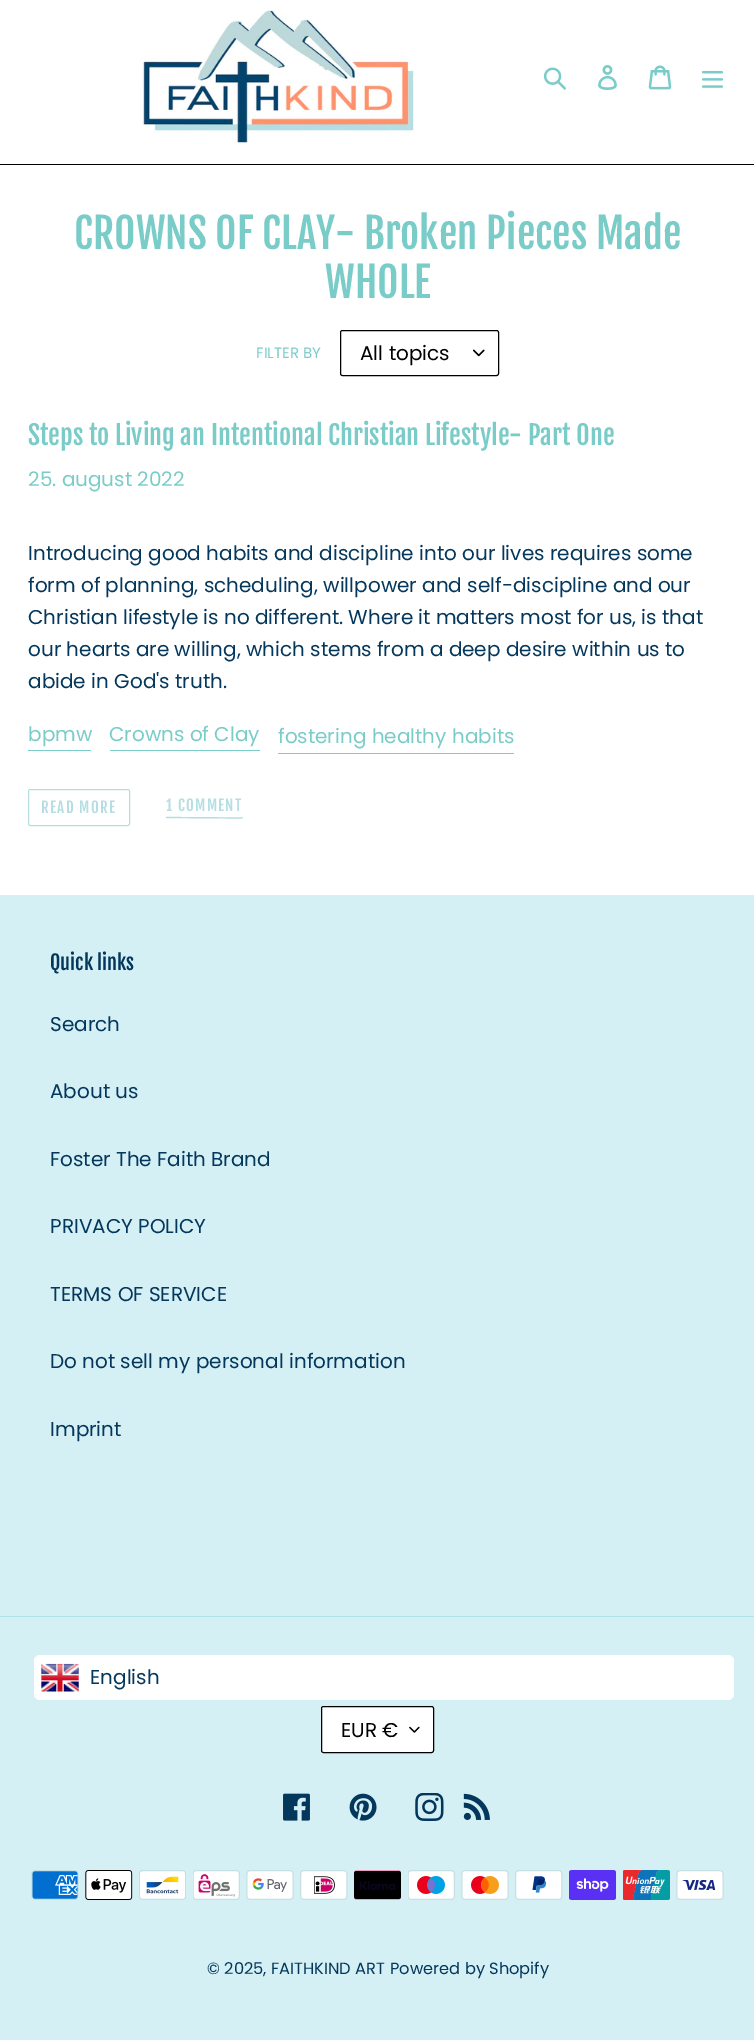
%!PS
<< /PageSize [754 2040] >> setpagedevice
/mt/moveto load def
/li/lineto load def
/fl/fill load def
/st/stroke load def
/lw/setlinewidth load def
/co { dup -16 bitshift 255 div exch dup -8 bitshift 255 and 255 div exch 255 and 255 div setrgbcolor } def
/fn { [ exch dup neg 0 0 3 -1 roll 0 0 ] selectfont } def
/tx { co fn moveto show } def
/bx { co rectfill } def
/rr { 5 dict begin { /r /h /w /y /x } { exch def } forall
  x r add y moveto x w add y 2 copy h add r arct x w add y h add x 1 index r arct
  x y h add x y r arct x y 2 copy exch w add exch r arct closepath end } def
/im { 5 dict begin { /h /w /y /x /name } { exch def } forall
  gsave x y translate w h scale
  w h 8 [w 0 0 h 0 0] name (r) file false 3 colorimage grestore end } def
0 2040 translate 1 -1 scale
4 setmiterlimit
0 0 754 2040 16#FFFFFF bx
0 164 754 1 16#000000 bx
(media/1.raw) 141 8 273 136 im
(media/2.raw) 543 67 23 23 im
(media/3.raw) 598 65 19 25 im
(media/4.raw) 648 65 24 25 im
(media/5.raw) 701 70 23 18 im
(media/6.raw) 473 349 12 8 im
340.5 330.5 158 45 2 rr st
28 750 63 1 16#7ACCC8 bx
110 750 150 1 16#7ACCC8 bx
278 753 236 1 16#7ACCC8 bx
16#B5DEE3 co
28.5 789.5 101 36 2 rr st
1.2 lw
242.5 817.5 mt 241 818 li 166 817.5 li st
0 895 754 1145 16#D5F0F4 bx
0 1616 754 1 16#ADE2E9 bx
16#FFFFFF co
34 1655 700 45 6 rr fl
(media/7.raw) 41 1663 38 29 im
321 1706 113 47 2.5 rr fl
(media/8.raw) 409 1726 11 7 im
16#000000 co
1 lw
321.5 1706.5 112 46 2 rr st
(media/9.raw) 283 1793 27 28 im
(media/10.raw) 349 1793 28 28 im
(media/11.raw) 415 1793 29 28 im
(media/12.raw) 463 1793 27 27 im
(media/13.raw) 31 1870 48 30 im
(media/14.raw) 85 1870 48 30 im
(media/15.raw) 139 1870 47 30 im
(media/16.raw) 193 1870 47 30 im
(media/17.raw) 246 1870 48 30 im
(media/18.raw) 300 1870 48 30 im
(media/19.raw) 354 1870 47 30 im
(media/20.raw) 408 1870 47 30 im
(media/21.raw) 461 1870 48 30 im
(media/22.raw) 515 1870 48 30 im
(media/23.raw) 569 1870 47 30 im
(media/24.raw) 623 1870 47 30 im
(media/25.raw) 676 1870 48 30 im
(CROWNS OF CLAY- Broken Pieces Made) 74 249 /FjallaOne-Regular 41.25 16#7ACCC8 tx
(WHOLE) 325 298 /FjallaOne-Regular 41.25 16#7ACCC8 tx
(FILTER BY) 256 358 /Poppins-Regular 15 16#7ACCC8 tx
(All topics) 360 360 /Poppins-Regular 20 16#000000 tx
(Steps to Living an Intentional Christian Lifestyle- Part One) 28 445 /FjallaOne-Regular 26.25 16#7ACCC8 tx
(25. august 2022) 28 486 /Poppins-Regular 20 16#7ACCC8 tx
(Introducing good habits and discipline into our lives requires some) 28 560 /Poppins-Regular 20 16#04375C tx
(form of planning, scheduling, willpower and self-discipline and our) 28 592 /Poppins-Regular 20 16#04375C tx
(Christian lifestyle is no different. Where it matters most for us, is that) 28 624 /Poppins-Regular 20 16#04375C tx
(our hearts are willing, which stems from a deep desire within us to) 28 656 /Poppins-Regular 20 16#04375C tx
(abide in God's truth.) 28 688 /Poppins-Regular 20 16#04375C tx
(bpmw) 28 741 /Poppins-Regular 20 16#7ACCC8 tx
(Crowns of Clay) 109 741 /Poppins-Regular 20 16#7ACCC8 tx
(fostering healthy habits) 278 743 /Poppins-Regular 20 16#7ACCC8 tx
/FjallaOne-Regular 15 fn
16#B5DEE3 co
41 813 mt 1.25 0 (READ MORE) ashow
166 811 mt 1.25 0 (1 COMMENT) ashow
(Quick links) 50 970 /FjallaOne-Regular 20 16#04375C tx
(Search) 50 1031 /Poppins-Regular 20 16#04375C tx
(About us) 50 1098 /Poppins-Regular 20 16#04375C tx
(Foster The Faith Brand) 50 1166 /Poppins-Regular 20 16#04375C tx
(PRIVACY POLICY) 50 1233 /Poppins-Regular 20 16#04375C tx
(TERMS OF SERVICE) 50 1301 /Poppins-Regular 20 16#04375C tx
(Do not sell my personal information) 50 1368 /Poppins-Regular 20 16#04375C tx
(Imprint) 50 1436 /Poppins-Regular 20 16#04375C tx
(English) 90 1684 /Poppins-Regular 20 16#04375C tx
(EUR €) 341 1737 /Poppins-Regular 20 16#000000 tx
(© 2025, FAITHKIND ART) 207 1974 /Poppins-Regular 16.25 16#04375C tx
(Powered by Shopify) 390 1974 /Poppins-Regular 16.25 16#04375C tx
showpage
